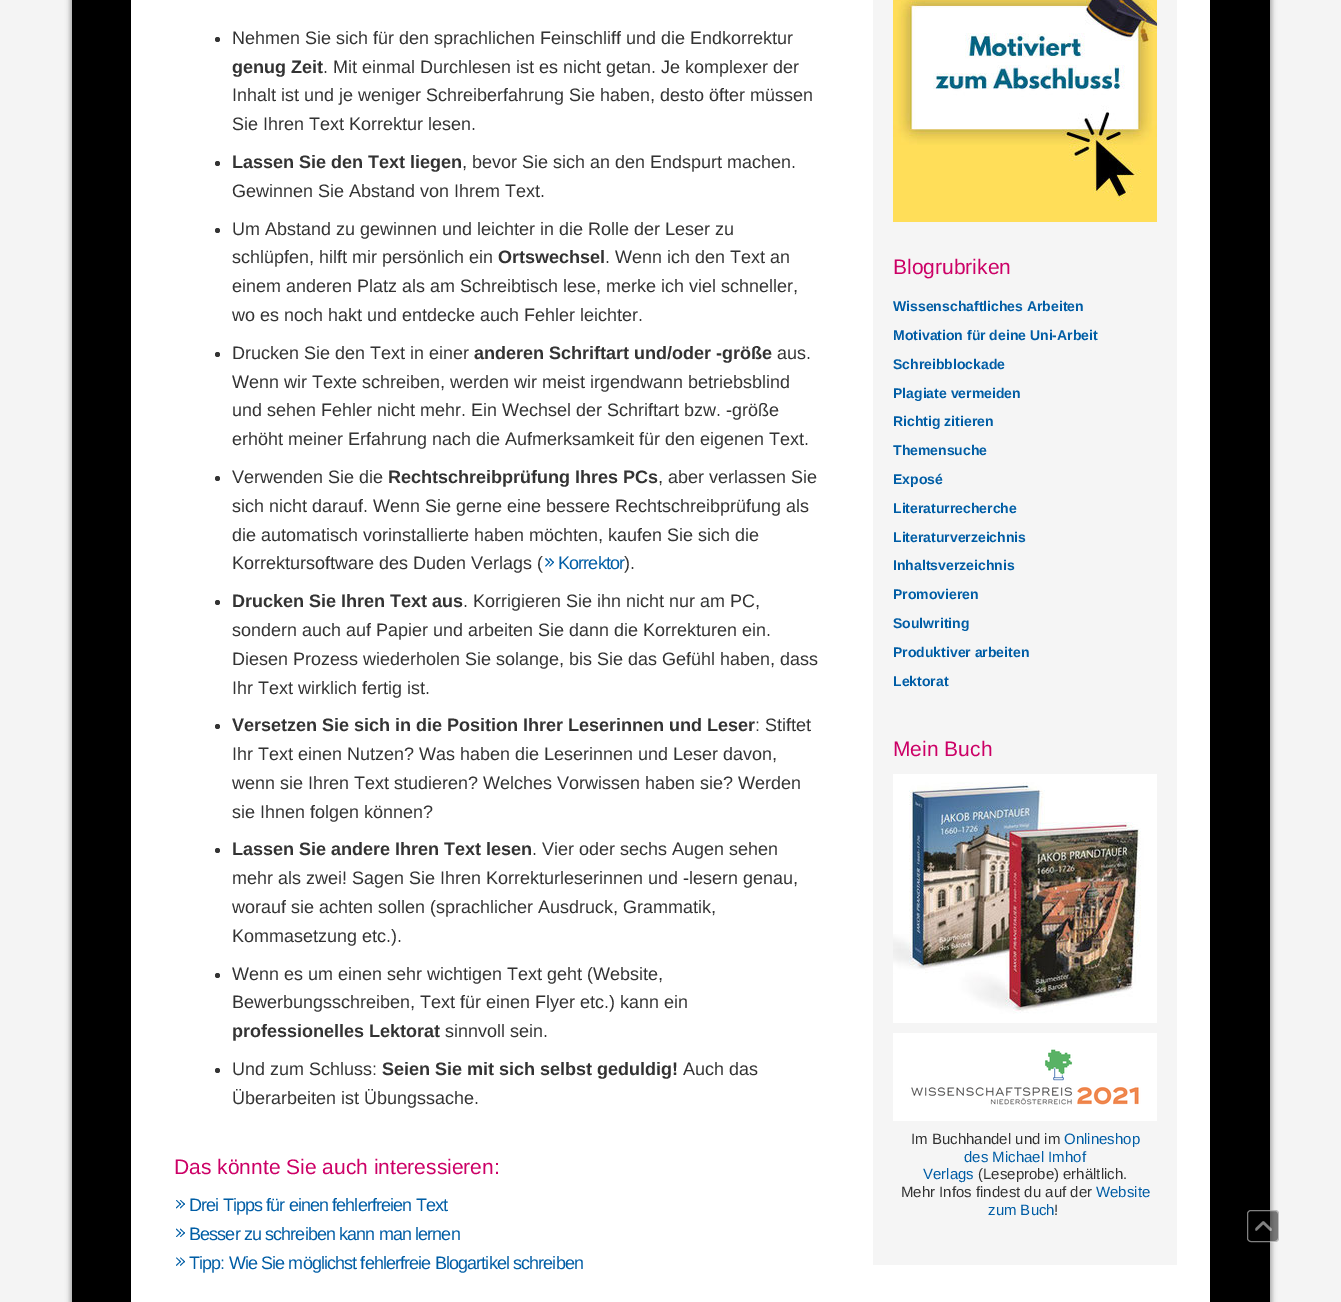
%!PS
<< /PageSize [1341 1302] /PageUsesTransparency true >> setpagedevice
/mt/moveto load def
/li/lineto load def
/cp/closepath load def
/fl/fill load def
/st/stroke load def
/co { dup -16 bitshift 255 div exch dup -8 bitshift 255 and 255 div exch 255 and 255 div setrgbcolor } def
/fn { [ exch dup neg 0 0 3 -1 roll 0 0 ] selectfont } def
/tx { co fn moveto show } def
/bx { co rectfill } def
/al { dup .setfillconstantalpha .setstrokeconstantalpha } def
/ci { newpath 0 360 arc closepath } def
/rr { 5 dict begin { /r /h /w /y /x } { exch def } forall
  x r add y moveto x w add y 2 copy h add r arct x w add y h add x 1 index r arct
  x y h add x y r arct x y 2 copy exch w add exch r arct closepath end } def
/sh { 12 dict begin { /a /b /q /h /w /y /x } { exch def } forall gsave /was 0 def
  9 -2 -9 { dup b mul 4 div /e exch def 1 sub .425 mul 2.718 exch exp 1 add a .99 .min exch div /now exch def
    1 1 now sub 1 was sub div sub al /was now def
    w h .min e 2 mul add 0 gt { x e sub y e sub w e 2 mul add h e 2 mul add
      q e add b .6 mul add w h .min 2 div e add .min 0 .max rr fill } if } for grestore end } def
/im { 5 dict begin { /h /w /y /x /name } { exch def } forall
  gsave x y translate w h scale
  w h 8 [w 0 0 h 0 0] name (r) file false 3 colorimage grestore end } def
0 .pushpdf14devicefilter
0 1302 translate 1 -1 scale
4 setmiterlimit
0 0 1341 1302 16#F4F4F4 bx
16#AAAAAA co
70 -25 1202 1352 17 2.5 1 sh
72 0 1198 1302 16#000000 bx
131 0 1079 1302 16#FFFFFF bx
16#333333 co
217.5 39.5 2.5 ci fl
217.5 163.5 2.5 ci fl
217.5 230.5 2.5 ci fl
217.5 354.5 2.5 ci fl
217.5 478.5 2.5 ci fl
16#005DA5 co
546 558 mt 550 562.5 li 549.5 563 li 545 559 li cp fl
549.5 561.5 mt 550 562.5 li 546 566.5 li 545 566 li cp fl
550 558 mt 554 562.5 li 553.5 563 li 549 559 li cp fl
553.5 561.5 mt 554 562.5 li 550 566.5 li 549 566 li cp fl
16#333333 co
217.5 602.5 2.5 ci fl
217.5 726.5 2.5 ci fl
217.5 850.5 2.5 ci fl
217.5 975.5 2.5 ci fl
217.5 1070.5 2.5 ci fl
16#005DA5 co
176.5 1200 mt 181 1204 li 180.5 1205 li 176 1200.5 li cp fl
180.5 1203.5 mt 181 1204 li 176.5 1208.5 li 176 1207.5 li cp fl
180.5 1200 mt 185 1204 li 184.5 1205 li 180 1200.5 li cp fl
184.5 1203.5 mt 185 1204 li 180.5 1208.5 li 180 1207.5 li cp fl
176.5 1228.5 mt 181 1233 li 180.5 1233.5 li 176 1229.5 li cp fl
180.5 1232 mt 181 1233 li 176.5 1237 li 176 1236.5 li cp fl
180.5 1228.5 mt 185 1233 li 184.5 1233.5 li 180 1229.5 li cp fl
184.5 1232 mt 185 1233 li 180.5 1237 li 180 1236.5 li cp fl
176.5 1257.5 mt 181 1261.5 li 180.5 1262.5 li 176 1258 li cp fl
180.5 1261 mt 181 1261.5 li 176.5 1266 li 176 1265 li cp fl
180.5 1257.5 mt 185 1261.5 li 184.5 1262.5 li 180 1258 li cp fl
184.5 1261 mt 185 1261.5 li 180.5 1266 li 180 1265 li cp fl
873 0 304 1265 16#F5F5F5 bx
(media/1.raw) 893 0 264 222 im
(media/2.raw) 893 774 264 249 im
(media/3.raw) 893 1033 264 88 im
0.5 al
16#000000 co
1247 1210 32 32 4 rr fl
16#FFFFFF co
1247.5 1210.5 31 31 3.5 rr st
1 al
(media/4.raw) 1255 1221 17 10 im
(Nehmen Sie sich für den sprachlichen Feinschliff und die Endkorrektur) 232 44 /LiberationSans-Regular 18 16#333333 tx
(genug Zeit) 232 73 /LiberationSans-Bold 18 16#333333 tx
(. Mit einmal Durchlesen ist es nicht getan. Je komplexer der) 323 73 /LiberationSans-Regular 18 16#333333 tx
(Inhalt ist und je weniger Schreiberfahrung Sie haben, desto öfter müssen) 232 101 /LiberationSans-Regular 18 16#333333 tx
(Sie Ihren Text Korrektur lesen.) 232 130 /LiberationSans-Regular 18 16#333333 tx
(Lassen Sie den Text liegen) 232 168 /LiberationSans-Bold 18 16#333333 tx
(, bevor Sie sich an den Endspurt machen.) 462 168 /LiberationSans-Regular 18 16#333333 tx
(Gewinnen Sie Abstand von Ihrem Text.) 232 197 /LiberationSans-Regular 18 16#333333 tx
(Um Abstand zu gewinnen und leichter in die Rolle der Leser zu) 232 235 /LiberationSans-Regular 18 16#333333 tx
(schlüpfen, hilft mir persönlich ein) 232 263 /LiberationSans-Regular 18 16#333333 tx
(Ortswechsel) 498 263 /LiberationSans-Bold 18 16#333333 tx
(. Wenn ich den Text an) 605 263 /LiberationSans-Regular 18 16#333333 tx
(einem anderen Platz als am Schreibtisch lese, merke ich viel schneller,) 232 292 /LiberationSans-Regular 18 16#333333 tx
(wo es noch hakt und entdecke auch Fehler leichter.) 232 321 /LiberationSans-Regular 18 16#333333 tx
(Drucken Sie den Text in einer) 232 359 /LiberationSans-Regular 18 16#333333 tx
(anderen Schriftart und/oder -größe) 474 359 /LiberationSans-Bold 18 16#333333 tx
(aus.) 777 359 /LiberationSans-Regular 18 16#333333 tx
(Wenn wir Texte schreiben, werden wir meist irgendwann betriebsblind) 232 388 /LiberationSans-Regular 18 16#333333 tx
(und sehen Fehler nicht mehr. Ein Wechsel der Schriftart bzw. -größe) 232 416 /LiberationSans-Regular 18 16#333333 tx
(erhöht meiner Erfahrung nach die Aufmerksamkeit für den eigenen Text.) 232 445 /LiberationSans-Regular 18 16#333333 tx
(Verwenden Sie die) 232 483 /LiberationSans-Regular 18 16#333333 tx
(Rechtschreibprüfung Ihres PCs) 388 483 /LiberationSans-Bold 18 16#333333 tx
(, aber verlassen Sie) 658 483 /LiberationSans-Regular 18 16#333333 tx
(sich nicht darauf. Wenn Sie gerne eine bessere Rechtschreibprüfung als) 232 512 /LiberationSans-Regular 18 16#333333 tx
(die automatisch vorinstallierte haben möchten, kaufen Sie sich die) 232 541 /LiberationSans-Regular 18 16#333333 tx
(Korrektursoftware des Duden Verlags \() 232 569 /LiberationSans-Regular 18 16#333333 tx
(\).) 624 569 /LiberationSans-Regular 18 16#333333 tx
16#005DA5 co
558 569 mt -.9 0 (Korrektor) ashow
(Drucken Sie Ihren Text aus) 232 607 /LiberationSans-Bold 18 16#333333 tx
(. Korrigieren Sie ihn nicht nur am PC,) 463 607 /LiberationSans-Regular 18 16#333333 tx
(sondern auch auf Papier und arbeiten Sie dann die Korrekturen ein.) 232 636 /LiberationSans-Regular 18 16#333333 tx
(Diesen Prozess wiederholen Sie solange, bis Sie das Gefühl haben, dass) 232 665 /LiberationSans-Regular 18 16#333333 tx
(Ihr Text wirklich fertig ist.) 232 694 /LiberationSans-Regular 18 16#333333 tx
(Versetzen Sie sich in die Position Ihrer Leserinnen und Leser) 232 731 /LiberationSans-Bold 18 16#333333 tx
(: Stiftet) 755 731 /LiberationSans-Regular 18 16#333333 tx
(Ihr Text einen Nutzen? Was haben die Leserinnen und Leser davon,) 232 760 /LiberationSans-Regular 18 16#333333 tx
(wenn sie Ihren Text studieren? Welches Vorwissen haben sie? Werden) 232 789 /LiberationSans-Regular 18 16#333333 tx
(sie Ihnen folgen können?) 232 818 /LiberationSans-Regular 18 16#333333 tx
(Lassen Sie andere Ihren Text lesen) 232 855 /LiberationSans-Bold 18 16#333333 tx
(. Vier oder sechs Augen sehen) 532 855 /LiberationSans-Regular 18 16#333333 tx
(mehr als zwei! Sagen Sie Ihren Korrekturleserinnen und -lesern genau,) 232 884 /LiberationSans-Regular 18 16#333333 tx
(worauf sie achten sollen \(sprachlicher Ausdruck, Grammatik,) 232 913 /LiberationSans-Regular 18 16#333333 tx
(Kommasetzung etc.\).) 232 942 /LiberationSans-Regular 18 16#333333 tx
(Wenn es um einen sehr wichtigen Text geht \(Website,) 232 980 /LiberationSans-Regular 18 16#333333 tx
(Bewerbungsschreiben, Text für einen Flyer etc.\) kann ein) 232 1008 /LiberationSans-Regular 18 16#333333 tx
(professionelles Lektorat) 232 1037 /LiberationSans-Bold 18 16#333333 tx
(sinnvoll sein.) 445 1037 /LiberationSans-Regular 18 16#333333 tx
(Und zum Schluss:) 232 1075 /LiberationSans-Regular 18 16#333333 tx
(Seien Sie mit sich selbst geduldig!) 382 1075 /LiberationSans-Bold 18 16#333333 tx
(Auch das) 683 1075 /LiberationSans-Regular 18 16#333333 tx
(Überarbeiten ist Übungssache.) 232 1104 /LiberationSans-Regular 18 16#333333 tx
(Das könnte Sie auch interessieren:) 174 1174 /LiberationSans-Regular 21 16#CC0066 tx
/LiberationSans-Regular 18 fn
16#005DA5 co
189 1211 mt -.9 0 (Drei Tipps für einen fehlerfreien Text) ashow
189 1240 mt -.9 0 (Besser zu schreiben kann man lernen) ashow
189 1269 mt -.9 0 (Tipp: Wie Sie möglichst fehlerfreie Blogartikel schreiben) ashow
(Blogrubriken) 893 274 /LiberationSans-Regular 21 16#CC0066 tx
(Wissenschaftliches Arbeiten) 893 311 /LiberationSans-Bold 14 16#005DA5 tx
(Motivation für deine Uni-Arbeit) 893 340 /LiberationSans-Bold 14 16#005DA5 tx
(Schreibblockade) 893 369 /LiberationSans-Bold 14 16#005DA5 tx
(Plagiate vermeiden) 893 398 /LiberationSans-Bold 14 16#005DA5 tx
(Richtig zitieren) 893 426 /LiberationSans-Bold 14 16#005DA5 tx
(Themensuche) 893 455 /LiberationSans-Bold 14 16#005DA5 tx
(Exposé) 893 484 /LiberationSans-Bold 14 16#005DA5 tx
(Literaturrecherche) 893 513 /LiberationSans-Bold 14 16#005DA5 tx
(Literaturverzeichnis) 893 542 /LiberationSans-Bold 14 16#005DA5 tx
(Inhaltsverzeichnis) 893 570 /LiberationSans-Bold 14 16#005DA5 tx
(Promovieren) 893 599 /LiberationSans-Bold 14 16#005DA5 tx
(Soulwriting) 893 628 /LiberationSans-Bold 14 16#005DA5 tx
(Produktiver arbeiten) 893 657 /LiberationSans-Bold 14 16#005DA5 tx
(Lektorat) 893 686 /LiberationSans-Bold 14 16#005DA5 tx
(Mein Buch) 893 756 /LiberationSans-Regular 21 16#CC0066 tx
(Im Buchhandel und im) 911 1144 /LiberationSans-Regular 15 16#333333 tx
(Onlineshop) 1064 1144 /LiberationSans-Regular 15 16#005DA5 tx
(des Michael Imhof) 964 1162 /LiberationSans-Regular 15 16#005DA5 tx
(Verlags) 923 1179 /LiberationSans-Regular 15 16#005DA5 tx
(\(Leseprobe\) erhältlich.) 978 1179 /LiberationSans-Regular 15 16#333333 tx
(Mehr Infos findest du auf der) 901 1197 /LiberationSans-Regular 15 16#333333 tx
(Website) 1096 1197 /LiberationSans-Regular 15 16#005DA5 tx
(zum Buch) 988 1215 /LiberationSans-Regular 15 16#005DA5 tx
(!) 1054 1215 /LiberationSans-Regular 15 16#333333 tx
.poppdf14devicefilter showpage
